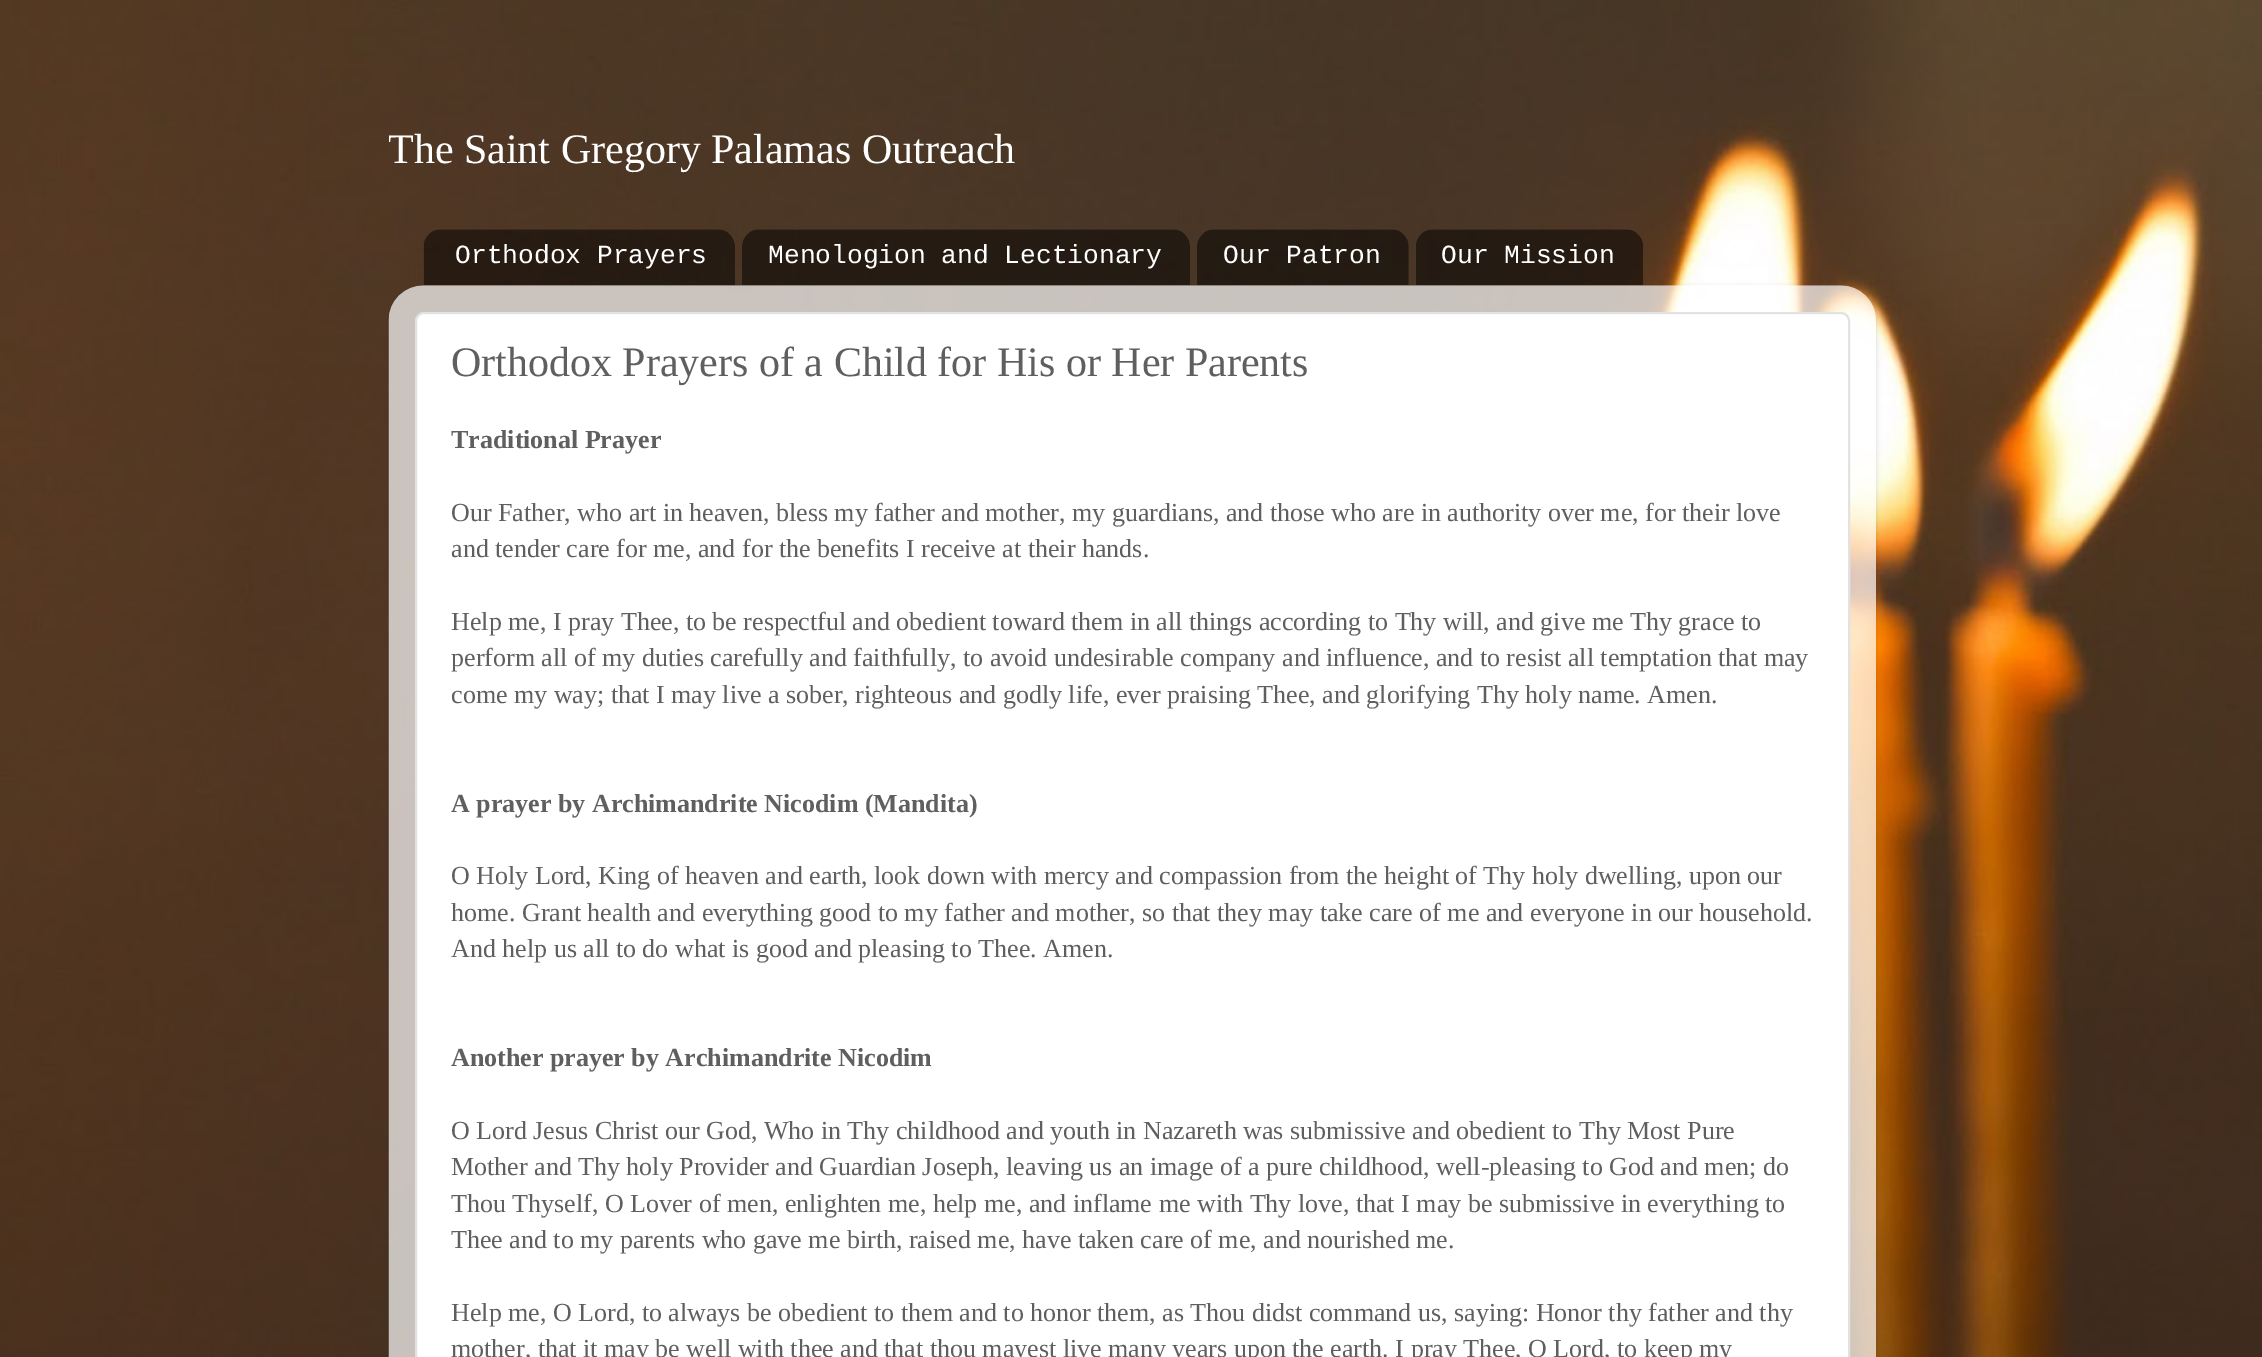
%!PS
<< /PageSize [2262 1357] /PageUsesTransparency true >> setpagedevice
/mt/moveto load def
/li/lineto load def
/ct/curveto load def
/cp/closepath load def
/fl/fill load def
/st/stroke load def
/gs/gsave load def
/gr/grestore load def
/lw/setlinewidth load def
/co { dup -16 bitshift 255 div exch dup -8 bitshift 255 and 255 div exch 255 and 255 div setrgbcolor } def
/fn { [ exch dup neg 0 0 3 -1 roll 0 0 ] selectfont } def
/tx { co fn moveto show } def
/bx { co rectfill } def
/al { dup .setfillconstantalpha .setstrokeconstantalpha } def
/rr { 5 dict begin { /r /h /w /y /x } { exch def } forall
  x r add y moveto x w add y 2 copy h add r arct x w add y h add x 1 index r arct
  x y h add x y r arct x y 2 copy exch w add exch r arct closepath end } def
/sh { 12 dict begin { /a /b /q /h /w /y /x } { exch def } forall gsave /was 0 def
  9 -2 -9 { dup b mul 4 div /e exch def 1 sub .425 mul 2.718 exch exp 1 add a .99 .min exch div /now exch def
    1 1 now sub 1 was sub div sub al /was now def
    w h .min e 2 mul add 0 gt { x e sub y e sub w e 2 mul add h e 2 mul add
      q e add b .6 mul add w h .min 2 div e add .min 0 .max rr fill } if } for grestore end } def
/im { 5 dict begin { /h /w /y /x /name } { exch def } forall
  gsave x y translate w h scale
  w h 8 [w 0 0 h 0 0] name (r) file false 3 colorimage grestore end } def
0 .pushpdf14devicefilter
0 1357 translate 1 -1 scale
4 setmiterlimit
0 0 2262 1357 16#FFFFFF bx
(media/1.raw) 0 0 2262 1357 im
(media/2.raw) 423 229 312 56 im
(media/3.raw) 742 229 448 56 im
(media/4.raw) 1197 229 212 56 im
(media/5.raw) 1416 229 227 56 im
gs
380 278 mt 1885 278 li 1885 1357 li 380 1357 li cp 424 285 mt 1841 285 li 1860.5 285 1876 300.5 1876 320 ct 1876 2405 li 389 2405 li 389 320 li 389 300.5 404.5 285 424 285 ct cp eoclip newpath
16#000000 co
389 287 1487 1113 35 2.5 .15 sh
gr
(media/6.raw) 388 285 1488 1072 im
416 313 1433 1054 8 rr gs fl gr
16#E2E2E2 co
2 lw
st
gs
389 88 1487 129 rectclip
(The Saint Gregory Palamas Outreach) 388 163 /LiberationSerif-Regular 42 16#FFFFFF tx
gr
(Orthodox Prayers) 455 263 /LiberationMono-Regular 26.25 16#FFFFFF tx
(Menologion and Lectionary) 768 263 /LiberationMono-Regular 26.25 16#FFFFFF tx
(Our Patron) 1223 263 /LiberationMono-Regular 26.25 16#FFFFFF tx
(Our Mission) 1441 263 /LiberationMono-Regular 26.25 16#FFFFFF tx
(Orthodox Prayers of a Child for His or Her Parents) 451 376 /LiberationSerif-Regular 42 16#5F5F5F tx
(Traditional Prayer) 451 448 /LiberationSerif-Bold 26 16#5F5F5F tx
(Our Father, who art in heaven, bless my father and mother, my guardians, and those who are in authority over me, for their love) 451 521 /LiberationSerif-Regular 26 16#5F5F5F tx
(and tender care for me, and for the benefits I receive at their hands.) 451 557 /LiberationSerif-Regular 26 16#5F5F5F tx
(Help me, I pray Thee, to be respectful and obedient toward them in all things according to Thy will, and give me Thy grace to) 451 630 /LiberationSerif-Regular 26 16#5F5F5F tx
(perform all of my duties carefully and faithfully, to avoid undesirable company and influence, and to resist all temptation that may) 451 666 /LiberationSerif-Regular 26 16#5F5F5F tx
(come my way; that I may live a sober, righteous and godly life, ever praising Thee, and glorifying Thy holy name. Amen.) 451 703 /LiberationSerif-Regular 26 16#5F5F5F tx
(A prayer by Archimandrite Nicodim \(Mandita\)) 451 812 /LiberationSerif-Bold 26 16#5F5F5F tx
(O Holy Lord, King of heaven and earth, look down with mercy and compassion from the height of Thy holy dwelling, upon our) 451 884 /LiberationSerif-Regular 26 16#5F5F5F tx
(home. Grant health and everything good to my father and mother, so that they may take care of me and everyone in our household.) 451 921 /LiberationSerif-Regular 26 16#5F5F5F tx
(And help us all to do what is good and pleasing to Thee. Amen.) 451 957 /LiberationSerif-Regular 26 16#5F5F5F tx
(Another prayer by Archimandrite Nicodim) 451 1066 /LiberationSerif-Bold 26 16#5F5F5F tx
(O Lord Jesus Christ our God, Who in Thy childhood and youth in Nazareth was submissive and obedient to Thy Most Pure) 451 1139 /LiberationSerif-Regular 26 16#5F5F5F tx
(Mother and Thy holy Provider and Guardian Joseph, leaving us an image of a pure childhood, well-pleasing to God and men; do) 451 1175 /LiberationSerif-Regular 26 16#5F5F5F tx
(Thou Thyself, O Lover of men, enlighten me, help me, and inflame me with Thy love, that I may be submissive in everything to) 451 1212 /LiberationSerif-Regular 26 16#5F5F5F tx
(Thee and to my parents who gave me birth, raised me, have taken care of me, and nourished me.) 451 1248 /LiberationSerif-Regular 26 16#5F5F5F tx
(Help me, O Lord, to always be obedient to them and to honor them, as Thou didst command us, saying: Honor thy father and thy) 451 1321 /LiberationSerif-Regular 26 16#5F5F5F tx
(mother, that it may be well with thee and that thou mayest live many years upon the earth. I pray Thee, O Lord, to keep my) 451 1357 /LiberationSerif-Regular 26 16#5F5F5F tx
.poppdf14devicefilter showpage
